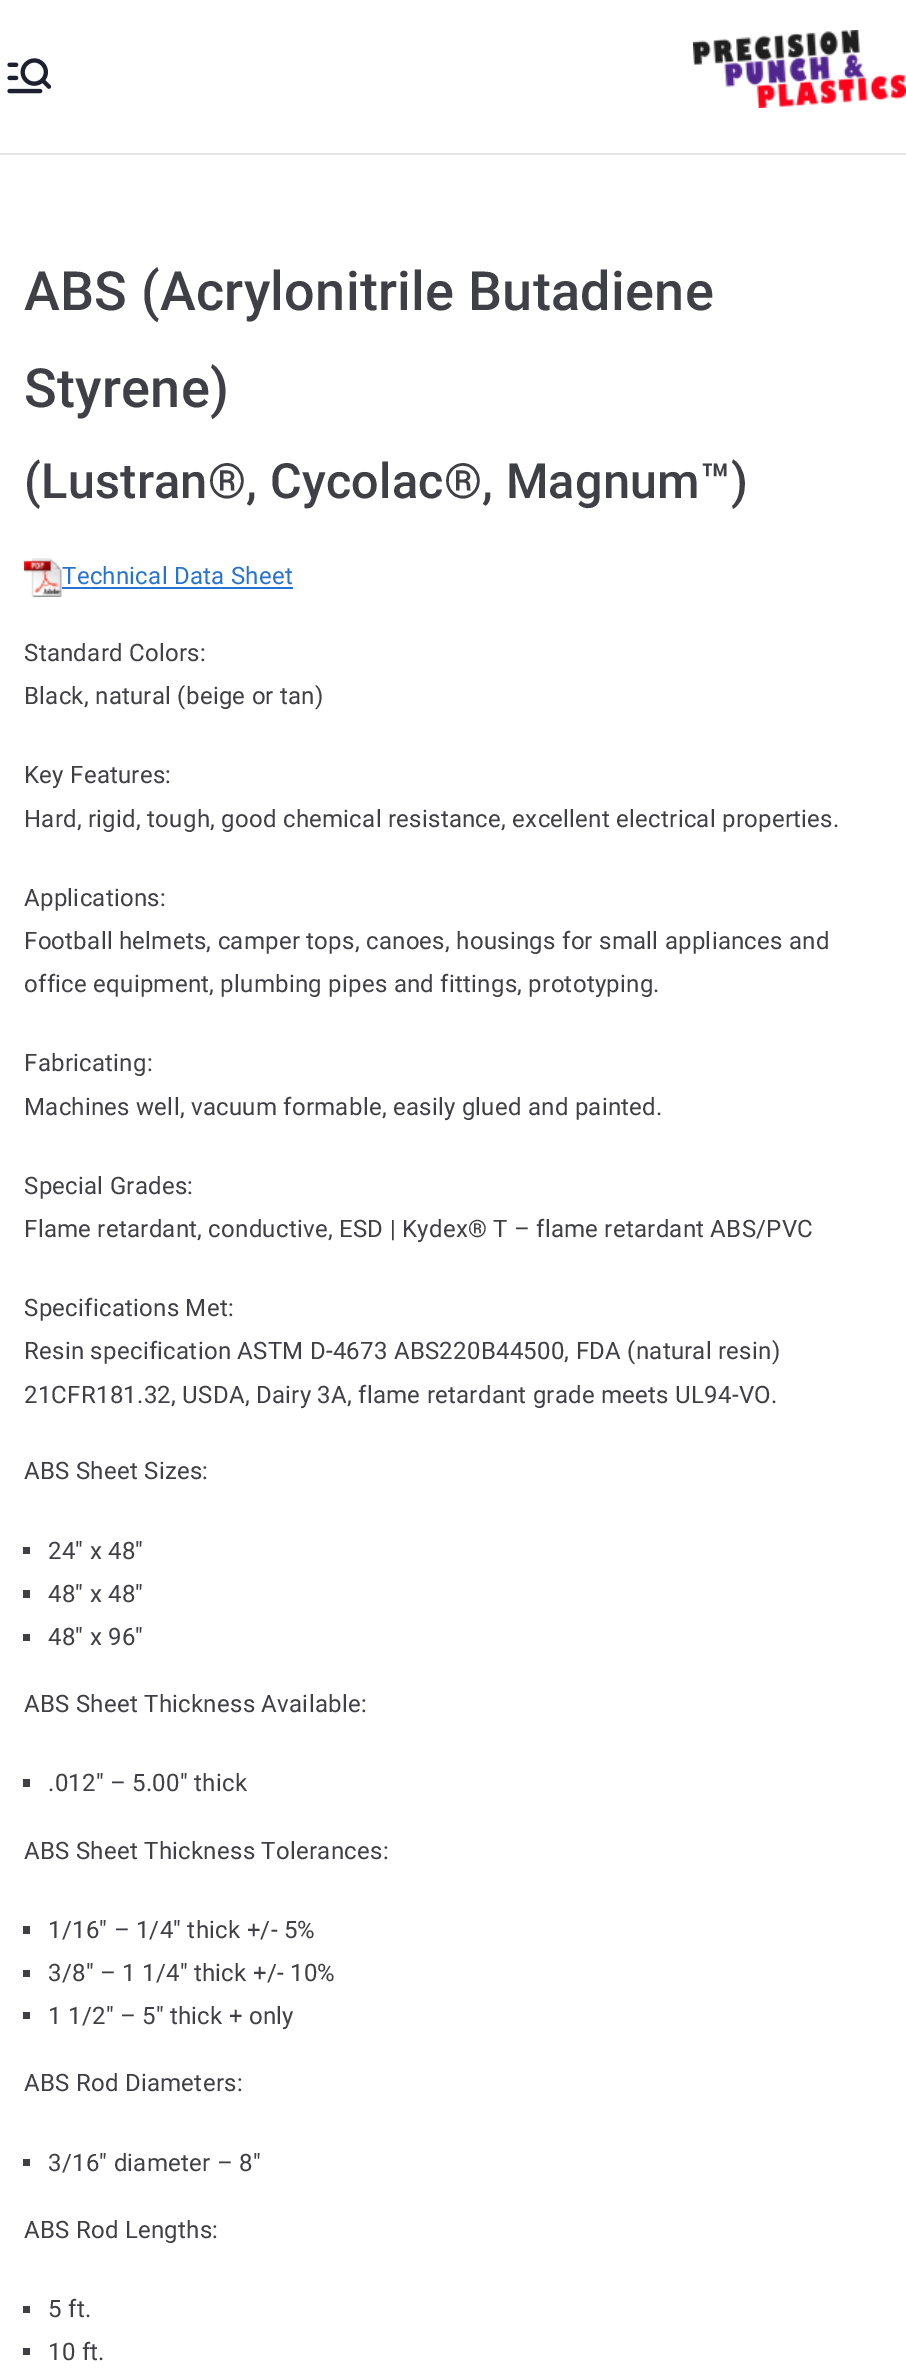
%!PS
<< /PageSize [906 2379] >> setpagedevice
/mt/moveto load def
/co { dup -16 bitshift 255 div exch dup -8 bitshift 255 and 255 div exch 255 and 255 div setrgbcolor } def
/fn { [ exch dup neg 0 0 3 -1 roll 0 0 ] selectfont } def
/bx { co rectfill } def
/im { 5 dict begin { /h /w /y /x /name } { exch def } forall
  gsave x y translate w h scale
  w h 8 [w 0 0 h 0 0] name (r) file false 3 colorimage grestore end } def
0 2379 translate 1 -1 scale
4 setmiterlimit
0 0 906 2379 16#E4E4E7 bx
0 0 906 153 16#FFFFFF bx
(media/1.raw) 7 58 45 36 im
(media/2.raw) 693 30 213 78 im
0 155 906 2224 16#FFFFFF bx
(media/3.raw) 24 558 38 39 im
62 587 231 2 16#2773D1 bx
23 1547 7 7 16#3F3F46 bx
23 1590 7 8 16#3F3F46 bx
23 1634 7 7 16#3F3F46 bx
23 1779 7 8 16#3F3F46 bx
23 1926 7 8 16#3F3F46 bx
23 1970 7 7 16#3F3F46 bx
23 2012 7 7 16#3F3F46 bx
23 2159 7 7 16#3F3F46 bx
23 2306 7 7 16#3F3F46 bx
23 2348 7 7 16#3F3F46 bx
/Roboto-Medium 54 fn
24 310 mt .25 0 (ABS \(Acrylonitrile Butadiene) ashow
24 407 mt .25 0 (Styrene\)) ashow
/Roboto-Medium 48.6 fn
24 498 mt .25 0 (\(Lustran®, Cycolac®, Magnum™\)) ashow
/Roboto-Regular 24 fn
16#2773D1 co
62 584 mt .25 0 (Technical Data Sheet) ashow
16#3F3F46 co
24 661 mt .25 0 (Standard Colors:) ashow
24 704 mt .25 0 (Black, natural \(beige or tan\)) ashow
24 783 mt .25 0 (Key Features:) ashow
24 827 mt .25 0 (Hard, rigid, tough, good chemical resistance, excellent electrical properties.) ashow
24 906 mt .25 0 (Applications:) ashow
24 949 mt .25 0 (Football helmets, camper tops, canoes, housings for small appliances and) ashow
24 992 mt .25 0 (office equipment, plumbing pipes and fittings, prototyping.) ashow
24 1071 mt .25 0 (Fabricating:) ashow
24 1115 mt .25 0 (Machines well, vacuum formable, easily glued and painted.) ashow
24 1194 mt .25 0 (Special Grades:) ashow
24 1237 mt .25 0 (Flame retardant, conductive, ESD | Kydex® T – flame retardant ABS/PVC) ashow
24 1316 mt .25 0 (Specifications Met:) ashow
24 1359 mt .25 0 (Resin specification ASTM D-4673 ABS220B44500, FDA \(natural resin\)) ashow
24 1403 mt .25 0 (21CFR181.32, USDA, Dairy 3A, flame retardant grade meets UL94-VO.) ashow
24 1479 mt .25 0 (ABS Sheet Sizes:) ashow
48 1559 mt .25 0 (24″ x 48″) ashow
48 1602 mt .25 0 (48″ x 48″) ashow
48 1645 mt .25 0 (48″ x 96″) ashow
24 1712 mt .25 0 (ABS Sheet Thickness Available:) ashow
48 1791 mt .25 0 (.012″ – 5.00″ thick) ashow
24 1859 mt .25 0 (ABS Sheet Thickness Tolerances:) ashow
48 1938 mt .25 0 (1/16″ – 1/4″ thick +/- 5%) ashow
48 1981 mt .25 0 (3/8″ – 1 1/4″ thick +/- 10%) ashow
48 2024 mt .25 0 (1 1/2″ – 5″ thick + only) ashow
24 2091 mt .25 0 (ABS Rod Diameters:) ashow
48 2171 mt .25 0 (3/16″ diameter – 8″) ashow
24 2238 mt .25 0 (ABS Rod Lengths:) ashow
48 2317 mt .25 0 (5 ft.) ashow
48 2360 mt .25 0 (10 ft.) ashow
showpage
